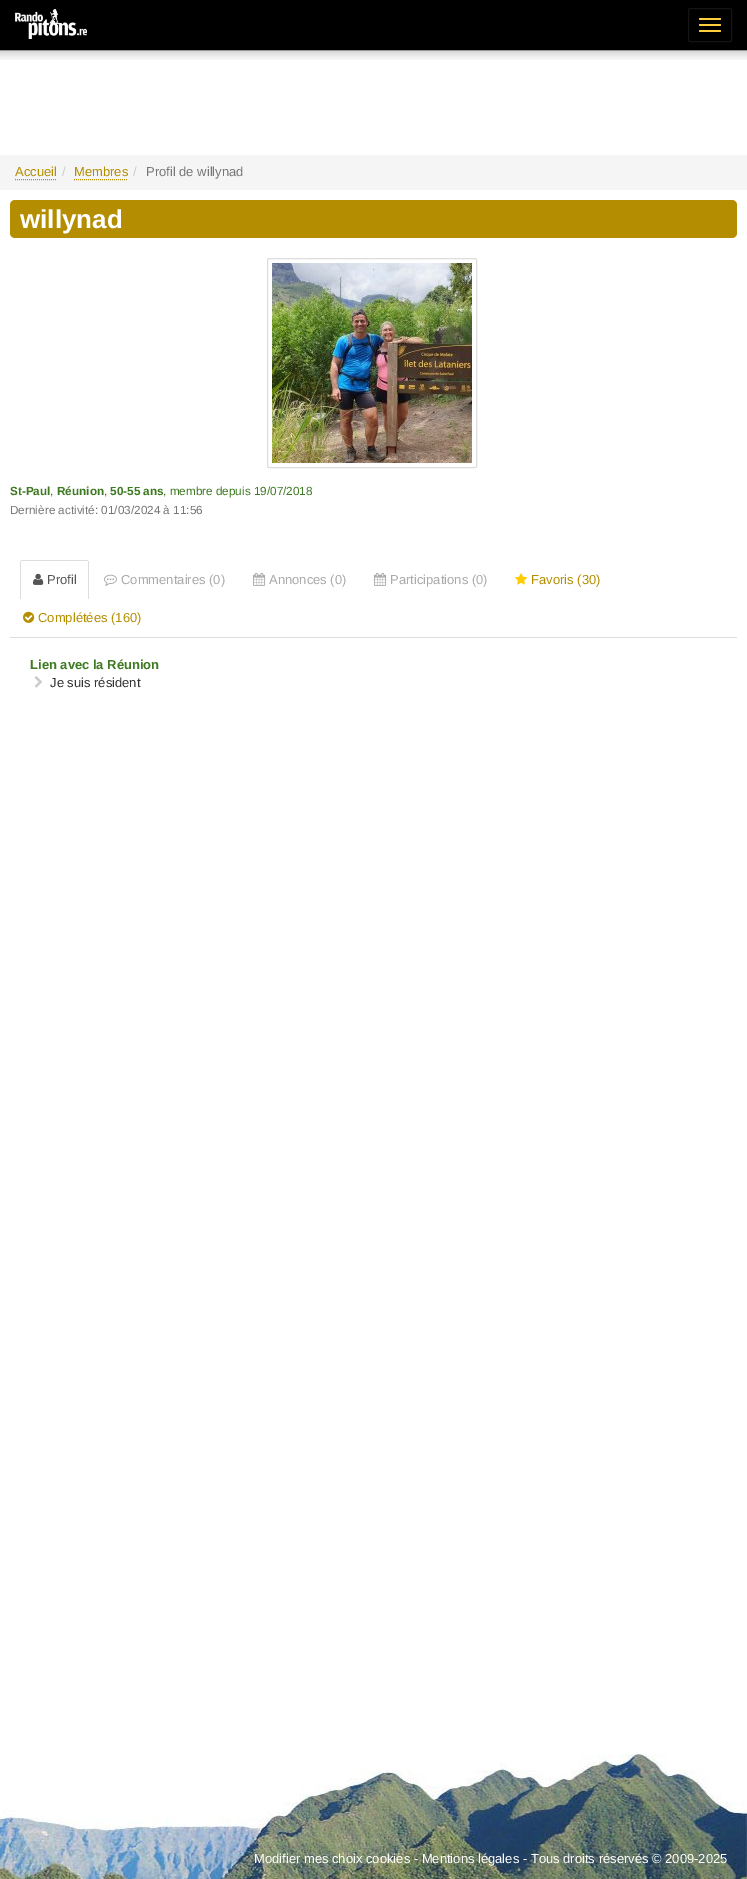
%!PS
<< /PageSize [747 1879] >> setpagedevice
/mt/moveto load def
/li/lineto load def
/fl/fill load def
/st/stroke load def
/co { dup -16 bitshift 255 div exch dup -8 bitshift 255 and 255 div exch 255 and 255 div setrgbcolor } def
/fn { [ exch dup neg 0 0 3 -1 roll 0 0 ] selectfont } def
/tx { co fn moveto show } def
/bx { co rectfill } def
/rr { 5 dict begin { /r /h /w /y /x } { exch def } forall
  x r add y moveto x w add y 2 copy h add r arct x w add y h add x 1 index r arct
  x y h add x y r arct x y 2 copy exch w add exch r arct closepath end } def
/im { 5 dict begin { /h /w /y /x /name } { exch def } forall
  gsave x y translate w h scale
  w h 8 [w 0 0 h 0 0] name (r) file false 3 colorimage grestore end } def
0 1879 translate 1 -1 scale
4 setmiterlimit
0 0 747 1879 16#FFFFFF bx
0 0 747 50 16#000000 bx
(media/1.raw) 15 9 72 30 im
16#141414 co
688.5 8.5 43 33 1.5 rr st
16#FFCE3C co
699 18 22 2 1 rr fl
699 24 22 2 1 rr fl
699 30 22 2 1 rr fl
(media/2.raw) 0 50 747 10 im
0 155 747 35 16#F5F5F5 bx
16#B48E00 co
[1 1] 0 setdash
15 179.5 mt 57 179.5 li st
74 179.5 mt 128 179.5 li st
10 200 727 38 5 rr fl
16#DDDDDD co
[] 0 setdash
267.5 258.5 209 209 1.5 rr st
(media/3.raw) 272 263 200 200 im
10 637 727 1 16#DDDDDD bx
21 560 67 1 16#DDDDDD bx
88 561 1 38 16#DDDDDD bx
20 561 1 38 16#DDDDDD bx
(media/4.raw) 33 573 11 12 im
(media/5.raw) 104 574 13 12 im
(media/6.raw) 253 572 13 14 im
(media/6.raw) 374 572 13 14 im
(media/7.raw) 515 573 12 12 im
(media/8.raw) 23 611 12 12 im
(media/9.raw) 34 676 8 12 im
(media/10.raw) 0 1754 747 125 im
(Accueil) 15 176 /LiberationSans-Regular 13 16#B48E00 tx
(/) 62 176 /LiberationSans-Regular 13 16#CCCCCC tx
(Membres) 74 176 /LiberationSans-Regular 13 16#B48E00 tx
(/) 133 176 /LiberationSans-Regular 13 16#CCCCCC tx
(Profil de willynad) 146 176 /LiberationSans-Regular 13 16#777777 tx
(willynad) 20 228 /LiberationSans-Bold 26 16#FFFFFF tx
(St-Paul) 10 495 /LiberationSans-Bold 11.75 16#3D7A21 tx
(,) 50 495 /LiberationSans-Regular 11.75 16#3D7A21 tx
(Réunion) 57 495 /LiberationSans-Bold 11.75 16#3D7A21 tx
(,) 104 495 /LiberationSans-Regular 11.75 16#3D7A21 tx
(50-55 ans) 110 495 /LiberationSans-Bold 11.75 16#3D7A21 tx
(, membre depuis 19/07/2018) 163 495 /LiberationSans-Regular 11.75 16#3D7A21 tx
(Dernière activité: 01/03/2024 à 11:56) 10 514 /LiberationSans-Regular 11.75 16#777777 tx
(Profil) 47 584 /LiberationSans-Regular 13 16#555555 tx
(Commentaires \(0\)) 121 584 /LiberationSans-Regular 13 16#AAAAAA tx
(Annonces \(0\)) 269 584 /LiberationSans-Regular 13 16#AAAAAA tx
(Participations \(0\)) 390 584 /LiberationSans-Regular 13 16#AAAAAA tx
(Favoris \(30\)) 531 584 /LiberationSans-Regular 13 16#B48E00 tx
(Complétées \(160\)) 38 622 /LiberationSans-Regular 13 16#B48E00 tx
(Lien avec la Réunion) 30 669 /LiberationSans-Bold 13 16#3D7A21 tx
(Je suis résident) 50 687 /LiberationSans-Regular 13 16#333333 tx
(Modifier mes choix cookies - Mentions légales - Tous droits réservés © 2009-2025) 254 1863 /LiberationSans-Regular 13 16#FFFFFF tx
showpage
